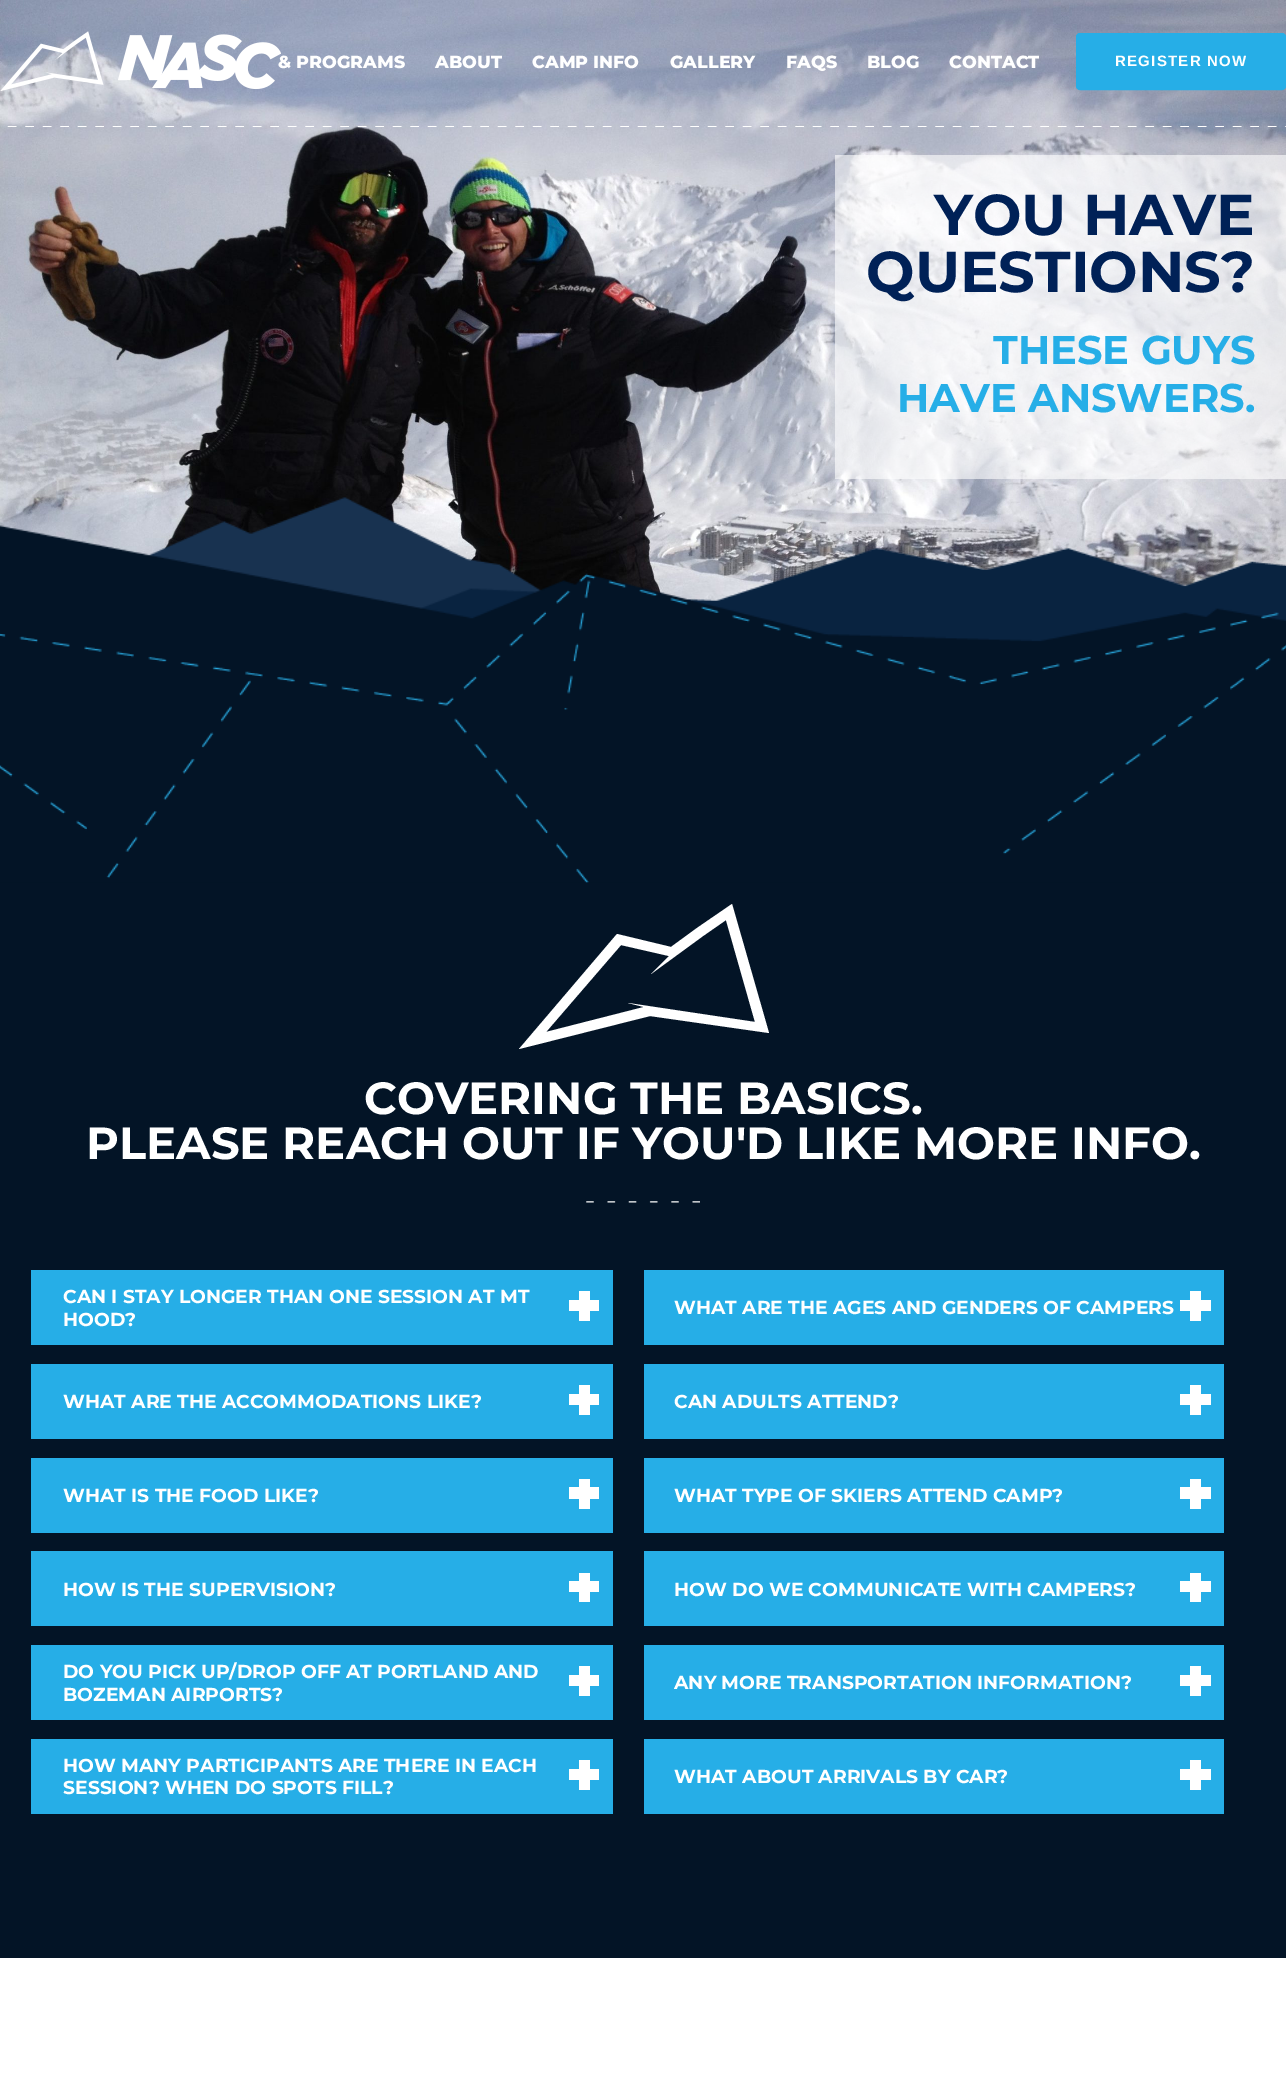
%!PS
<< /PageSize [1286 2098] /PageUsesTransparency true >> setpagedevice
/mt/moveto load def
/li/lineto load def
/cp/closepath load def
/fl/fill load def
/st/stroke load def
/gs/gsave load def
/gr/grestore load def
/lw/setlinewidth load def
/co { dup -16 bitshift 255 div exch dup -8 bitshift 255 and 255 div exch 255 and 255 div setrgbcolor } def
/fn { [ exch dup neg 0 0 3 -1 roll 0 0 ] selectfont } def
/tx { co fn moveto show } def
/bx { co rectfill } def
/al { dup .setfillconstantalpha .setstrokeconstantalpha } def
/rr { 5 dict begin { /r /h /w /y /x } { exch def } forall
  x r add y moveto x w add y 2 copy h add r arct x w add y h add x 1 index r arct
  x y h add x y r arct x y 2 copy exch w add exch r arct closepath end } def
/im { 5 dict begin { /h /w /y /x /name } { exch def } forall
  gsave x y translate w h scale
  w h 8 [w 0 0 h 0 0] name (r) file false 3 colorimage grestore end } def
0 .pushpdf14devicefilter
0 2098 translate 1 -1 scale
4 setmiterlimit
0 0 1286 2098 16#FFFFFF bx
(media/2.raw) 0 0 1286 601 im
(media/1.raw) 0 31 281 60 im
16#26AEE7 co
1076.5 33.5 209 56 3.5 rr gs fl gr
st
gs
0 126 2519 1 rectclip
16#FFFFFF co
2.5 lw
[8.75 8.75] 0 setdash
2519 126 mt -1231 126 li st
gr
0.6 al
835 155 451 324 16#FFFFFF bx
1 al
0 882 1286 1076 16#031426 bx
(media/3.raw) 0 497 1286 386 im
16#FFFFFF co
726 920 mt 755 1022 li 628 1003 li 644 1007 li 546 1032 li 621 945 li 669 956 li 651 974 li 703 936 li 726 920 li 732 904 mt 697 928 li 671 947 li 617 934 li 519 1049 li 650 1016 li 769 1033 li cp fl
(media/4.raw) 586 1201 114 2 im
31 1270 582 75 16#26AEE7 bx
579 1291 11 30 16#FFFFFF bx
569 1300 30 11 16#FFFFFF bx
31 1364 582 75 16#26AEE7 bx
579 1385 11 30 16#FFFFFF bx
569 1394 30 11 16#FFFFFF bx
31 1458 582 75 16#26AEE7 bx
579 1479 11 30 16#FFFFFF bx
569 1487 30 12 16#FFFFFF bx
31 1551 582 75 16#26AEE7 bx
579 1573 11 29 16#FFFFFF bx
569 1581 30 11 16#FFFFFF bx
31 1645 582 75 16#26AEE7 bx
579 1666 11 30 16#FFFFFF bx
569 1675 30 11 16#FFFFFF bx
31 1739 582 75 16#26AEE7 bx
579 1760 11 30 16#FFFFFF bx
569 1769 30 11 16#FFFFFF bx
644 1270 580 75 16#26AEE7 bx
1190 1291 11 30 16#FFFFFF bx
1180 1300 31 11 16#FFFFFF bx
644 1364 580 75 16#26AEE7 bx
1190 1385 11 30 16#FFFFFF bx
1180 1394 31 11 16#FFFFFF bx
644 1458 580 75 16#26AEE7 bx
1190 1479 11 30 16#FFFFFF bx
1180 1487 31 12 16#FFFFFF bx
644 1551 580 75 16#26AEE7 bx
1190 1573 11 29 16#FFFFFF bx
1180 1581 31 11 16#FFFFFF bx
644 1645 580 75 16#26AEE7 bx
1190 1666 11 30 16#FFFFFF bx
1180 1675 31 11 16#FFFFFF bx
644 1739 580 75 16#26AEE7 bx
1190 1760 11 30 16#FFFFFF bx
1180 1769 31 11 16#FFFFFF bx
(& PROGRAMS) 278 68 /Montserrat-ExtraBold 17.5 16#FFFFFF tx
(ABOUT) 435 68 /Montserrat-ExtraBold 17.5 16#FFFFFF tx
(CAMP INFO) 532 68 /Montserrat-ExtraBold 17.5 16#FFFFFF tx
(GALLERY) 670 68 /Montserrat-ExtraBold 17.5 16#FFFFFF tx
(FAQS) 786 68 /Montserrat-ExtraBold 17.5 16#FFFFFF tx
(BLOG) 867 68 /Montserrat-ExtraBold 17.5 16#FFFFFF tx
(CONTACT) 949 68 /Montserrat-ExtraBold 17.5 16#FFFFFF tx
/LiberationSans-Bold 15 fn
1115 66 mt 1.25 0 (REGISTER NOW) ashow
(YOU HAVE) 934 235 /Montserrat-Bold 57.5 16#002157 tx
(QUESTIONS?) 866 292 /Montserrat-Bold 57.5 16#002157 tx
(THESE GUYS) 993 364 /Montserrat-Bold 40 16#26AEE7 tx
(HAVE ANSWERS.) 897 412 /Montserrat-Bold 40 16#26AEE7 tx
(COVERING THE BASICS.) 364 1114 /Montserrat-Bold 45 16#FFFFFF tx
(PLEASE REACH OUT IF YOU'D LIKE MORE INFO.) 86 1159 /Montserrat-Bold 45 16#FFFFFF tx
(CAN I STAY LONGER THAN ONE SESSION AT MT) 63 1303 /Montserrat-Bold 18.75 16#FFFFFF tx
(HOOD?) 63 1326 /Montserrat-Bold 18.75 16#FFFFFF tx
(WHAT ARE THE ACCOMMODATIONS LIKE?) 63 1408 /Montserrat-Bold 18.75 16#FFFFFF tx
(WHAT IS THE FOOD LIKE?) 63 1502 /Montserrat-Bold 18.75 16#FFFFFF tx
(HOW IS THE SUPERVISION?) 63 1596 /Montserrat-Bold 18.75 16#FFFFFF tx
(DO YOU PICK UP/DROP OFF AT PORTLAND AND) 63 1678 /Montserrat-Bold 18.75 16#FFFFFF tx
(BOZEMAN AIRPORTS?) 63 1701 /Montserrat-Bold 18.75 16#FFFFFF tx
(HOW MANY PARTICIPANTS ARE THERE IN EACH) 63 1772 /Montserrat-Bold 18.75 16#FFFFFF tx
(SESSION? WHEN DO SPOTS FILL?) 63 1794 /Montserrat-Bold 18.75 16#FFFFFF tx
(WHAT ARE THE AGES AND GENDERS OF CAMPERS) 674 1314 /Montserrat-Bold 18.75 16#FFFFFF tx
(CAN ADULTS ATTEND?) 674 1408 /Montserrat-Bold 18.75 16#FFFFFF tx
(WHAT TYPE OF SKIERS ATTEND CAMP?) 674 1502 /Montserrat-Bold 18.75 16#FFFFFF tx
(HOW DO WE COMMUNICATE WITH CAMPERS?) 674 1596 /Montserrat-Bold 18.75 16#FFFFFF tx
(ANY MORE TRANSPORTATION INFORMATION?) 674 1689 /Montserrat-Bold 18.75 16#FFFFFF tx
(WHAT ABOUT ARRIVALS BY CAR?) 674 1783 /Montserrat-Bold 18.75 16#FFFFFF tx
.poppdf14devicefilter showpage
